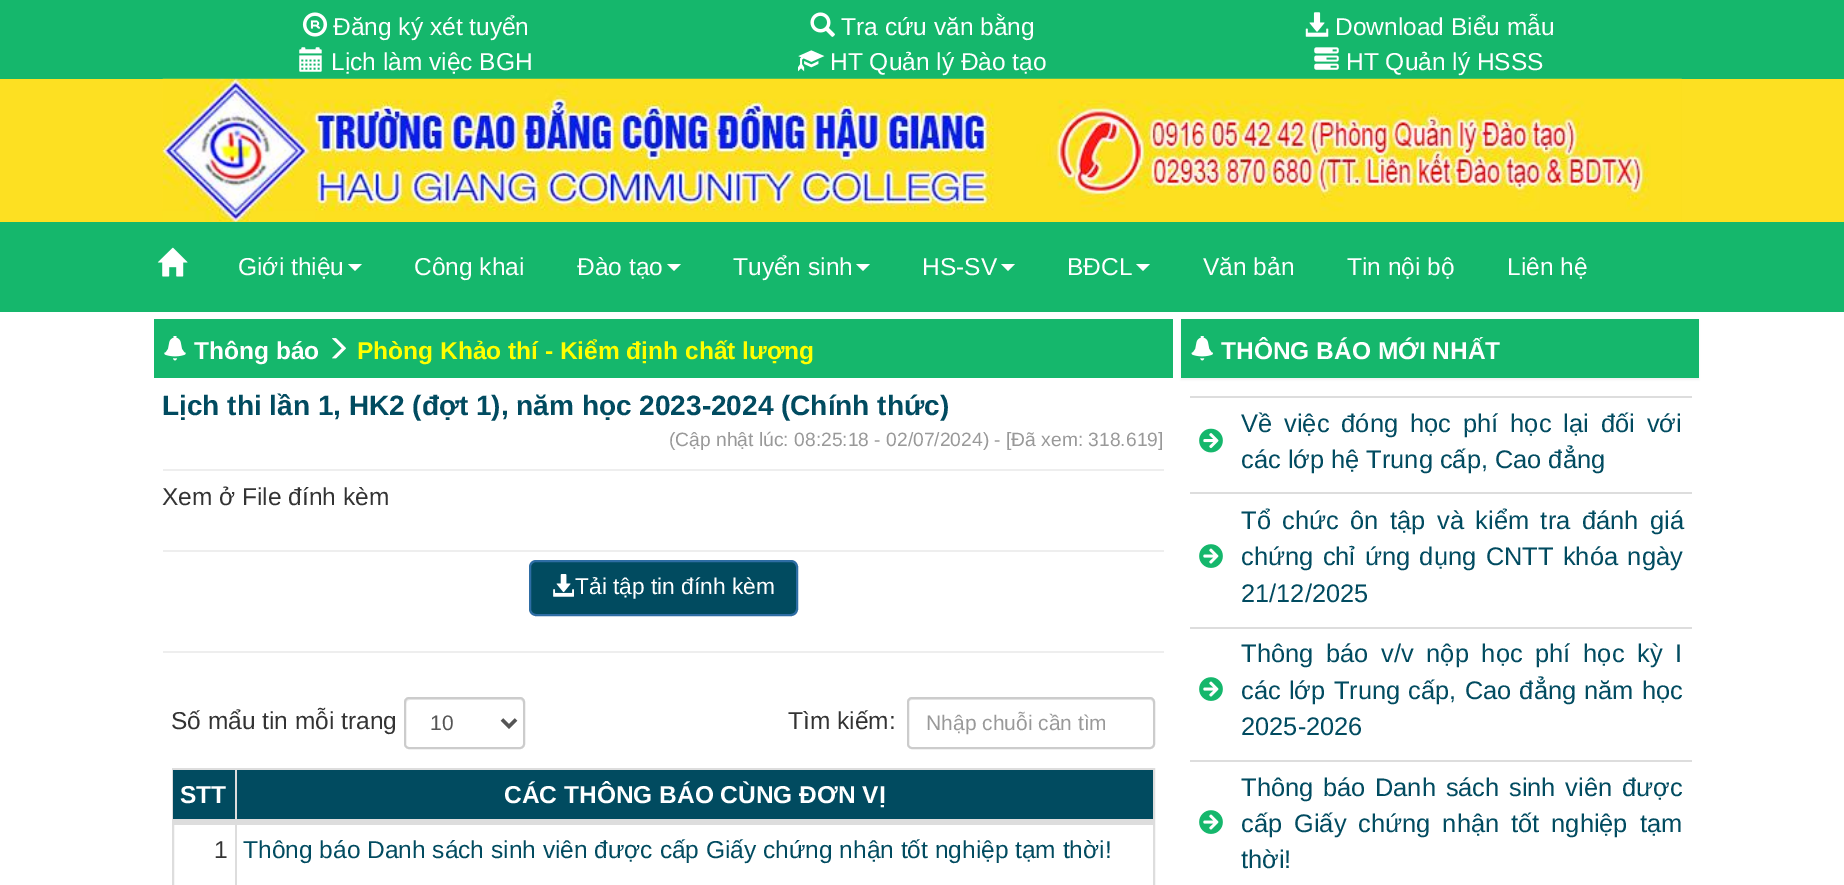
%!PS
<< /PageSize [1844 885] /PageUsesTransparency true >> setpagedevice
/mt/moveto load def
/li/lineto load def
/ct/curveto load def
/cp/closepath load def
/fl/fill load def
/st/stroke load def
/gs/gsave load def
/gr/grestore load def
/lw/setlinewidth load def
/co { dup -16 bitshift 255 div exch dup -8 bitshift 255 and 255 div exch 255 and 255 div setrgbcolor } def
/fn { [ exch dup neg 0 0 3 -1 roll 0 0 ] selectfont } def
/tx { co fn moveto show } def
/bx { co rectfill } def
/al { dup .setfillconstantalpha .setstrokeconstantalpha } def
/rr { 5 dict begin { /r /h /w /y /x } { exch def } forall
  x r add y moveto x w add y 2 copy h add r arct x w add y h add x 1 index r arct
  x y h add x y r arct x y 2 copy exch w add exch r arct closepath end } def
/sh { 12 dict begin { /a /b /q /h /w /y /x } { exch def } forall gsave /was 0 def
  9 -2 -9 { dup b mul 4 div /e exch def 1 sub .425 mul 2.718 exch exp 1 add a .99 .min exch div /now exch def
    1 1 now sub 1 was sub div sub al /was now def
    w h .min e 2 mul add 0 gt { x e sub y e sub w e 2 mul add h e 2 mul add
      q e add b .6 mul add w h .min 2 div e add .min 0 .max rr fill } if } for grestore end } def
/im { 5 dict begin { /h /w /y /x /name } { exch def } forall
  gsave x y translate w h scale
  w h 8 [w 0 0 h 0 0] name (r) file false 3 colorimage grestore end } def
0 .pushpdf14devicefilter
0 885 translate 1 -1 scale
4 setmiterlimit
0 0 1844 885 16#FFFFFF bx
0 0 1844 79 16#15B76C bx
(media/1.raw) 302 12 26 25 im
(media/2.raw) 810 12 25 25 im
(media/3.raw) 1305 12 24 25 im
(media/4.raw) 299 47 23 25 im
(media/5.raw) 798 50 27 22 im
(media/6.raw) 1314 47 25 23 im
0 79 1844 143 16#FDE022 bx
(media/7.raw) 162 78 1520 144 im
0 222 1844 90 16#15B76C bx
(media/8.raw) 157 247 31 30 im
16#FFFFFF co
348 264 mt 362 264 li 355 271 li cp fl
667 264 mt 681 264 li 674 271 li cp fl
856 264 mt 870 264 li 863 271 li cp fl
1001 264 mt 1015 264 li 1008 271 li cp fl
1136 264 mt 1150 264 li 1143 271 li cp fl
154 319 1019 59 16#15B76C bx
(media/9.raw) 164 336 22 25 im
(media/10.raw) 332 338 14 21 im
163 469 1001 2 16#EEEEEE bx
163 550 1001 2 16#EEEEEE bx
16#014B60 co
530 561 267 54 6 rr gs fl gr
16#2E6DA4 co
2 lw
st
(media/11.raw) 553 574 21 23 im
163 651 1001 2 16#EEEEEE bx
16#ECECEC co
410 700 mt 520 700 li 522 700 523 702 523 704 ct 523 702 li 523 700 521 698 519 698 ct 410 698 li 408 698 406 700 406 702 ct 406 704 li 406 702 408 700 410 700 ct cp fl
16#CCCCCC co
405 698 119 50 4 rr st
16#555555 co
3.5 lw
502 719.5 mt 509 726.5 li 516 719.5 li st
16#ECECEC co
912 700 mt 1150 700 li 1152 700 1153 702 1153 704 ct 1153 702 li 1153 700 1151 698 1149 698 ct 912 698 li 910 698 908 700 908 702 ct 908 704 li 908 702 910 700 912 700 ct cp fl
16#CCCCCC co
2 lw
908 698 246 50 4 rr st
16#DDDDDD co
173 769 981 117 rectstroke
173 770 980 49 16#014B60 bx
235 770 2 53 16#DDDDDD bx
173 819 980 4 16#DDDDDD bx
173 823 63 2 16#DDDDDD bx
235 823 2 62 16#DDDDDD bx
236 823 917 2 16#DDDDDD bx
16#000000 co
1181 320 518 60 0 1 .05 sh
1181 319 518 59 16#15B76C bx
(media/12.raw) 1191 336 22 25 im
(media/13.raw) 1199 428 24 25 im
1190 396 502 2 16#DDDDDD bx
(media/14.raw) 1199 544 24 24 im
1190 492 502 2 16#DDDDDD bx
(media/14.raw) 1199 677 24 24 im
1190 627 502 2 16#DDDDDD bx
(media/14.raw) 1199 810 24 24 im
1190 760 502 2 16#DDDDDD bx
(Đăng ký xét tuyển) 333 35 /LiberationSans-Regular 24.5 16#FFFFFF tx
(Tra cứu văn bằng) 841 35 /LiberationSans-Regular 24.5 16#FFFFFF tx
(Download Biểu mẫu) 1335 35 /LiberationSans-Regular 24.5 16#FFFFFF tx
(Lịch làm việc BGH) 331 70 /LiberationSans-Regular 24.5 16#FFFFFF tx
(HT Quản lý Đào tạo) 830 70 /LiberationSans-Regular 24.5 16#FFFFFF tx
(HT Quản lý HSSS) 1346 70 /LiberationSans-Regular 24.5 16#FFFFFF tx
(Giới thiệu) 238 275 /LiberationSans-Regular 24.5 16#FFFFFF tx
(Công khai) 414 275 /LiberationSans-Regular 24.5 16#FFFFFF tx
(Đào tạo) 577 275 /LiberationSans-Regular 24.5 16#FFFFFF tx
(Tuyển sinh) 733 275 /LiberationSans-Regular 24.5 16#FFFFFF tx
(HS-SV) 922 275 /LiberationSans-Regular 24.5 16#FFFFFF tx
(BĐCL) 1067 275 /LiberationSans-Regular 24.5 16#FFFFFF tx
(Văn bản) 1203 275 /LiberationSans-Regular 24.5 16#FFFFFF tx
(Tin nội bộ) 1347 275 /LiberationSans-Regular 24.5 16#FFFFFF tx
(Liên hệ) 1507 275 /LiberationSans-Regular 24.5 16#FFFFFF tx
(Thông báo) 194 359 /LiberationSans-Bold 24.5 16#FFFFFF tx
(Phòng Khảo thí - Kiểm định chất lượng) 357 359 /LiberationSans-Bold 24.5 16#FFFF00 tx
(Lịch thi lần 1, HK2 \(đợt 1\), năm học 2023-2024 \(Chính thức\)) 162 415 /LiberationSans-Bold 28 16#014B60 tx
(\(Cập nhật lúc: 08:25:18 - 02/07/2024\) - [Đã xem: 318.619]) 669 446 /LiberationSans-Regular 19.25 16#999999 tx
(Xem ở File đính kèm) 162 505 /LiberationSans-Regular 24.5 16#333333 tx
(Tải tập tin đính kèm) 575 594 /LiberationSans-Regular 22.75 16#FFFFFF tx
(Số mẩu tin mỗi trang) 171 729 /LiberationSans-Regular 24.5 16#333333 tx
(10) 430 730 /LiberationSans-Regular 21 16#555555 tx
(Tìm kiếm:) 788 729 /LiberationSans-Regular 24.5 16#333333 tx
(Nhập chuỗi cần tìm) 926 730 /LiberationSans-Regular 21 16#999999 tx
(STT) 180 803 /LiberationSans-Bold 24.5 16#FFFFFF tx
(CÁC THÔNG BÁO CÙNG ĐƠN VỊ) 504 803 /LiberationSans-Bold 24.5 16#FFFFFF tx
(1) 214 858 /LiberationSans-Regular 24.5 16#333333 tx
(Thông báo Danh sách sinh viên được cấp Giấy chứng nhận tốt nghiệp tạm thời!) 243 858 /LiberationSans-Regular 24.5 16#014B60 tx
(THÔNG BÁO MỚI NHẤT) 1221 359 /LiberationSans-Bold 24.5 16#FFFFFF tx
/LiberationSans-Regular 25.4 fn
16#014B60 co
1241 432 mt 5 0 32 (Về việc đóng học phí học lại đối với) widthshow
(các lớp hệ Trung cấp, Cao đẳng) 1241 468 /LiberationSans-Regular 25.4 16#014B60 tx
1241 529 mt 4.5 0 32 (Tổ chức ôn tập và kiểm tra đánh giá) widthshow
1241 565 mt 2.5 0 32 (chứng chỉ ứng dụng CNTT khóa ngày) widthshow
(21/12/2025) 1241 602 /LiberationSans-Regular 25.4 16#014B60 tx
1241 662 mt 5.75 0 32 (Thông báo v/v nộp học phí học kỳ I) widthshow
1241 699 mt 1.25 0 32 (các lớp Trung cấp, Cao đẳng năm học) widthshow
(2025-2026) 1241 735 /LiberationSans-Regular 25.4 16#014B60 tx
1241 796 mt 2.75 0 32 (Thông báo Danh sách sinh viên được) widthshow
1241 832 mt 5 0 32 (cấp Giấy chứng nhận tốt nghiệp tạm) widthshow
(thời!) 1241 868 /LiberationSans-Regular 25.4 16#014B60 tx
.poppdf14devicefilter showpage
